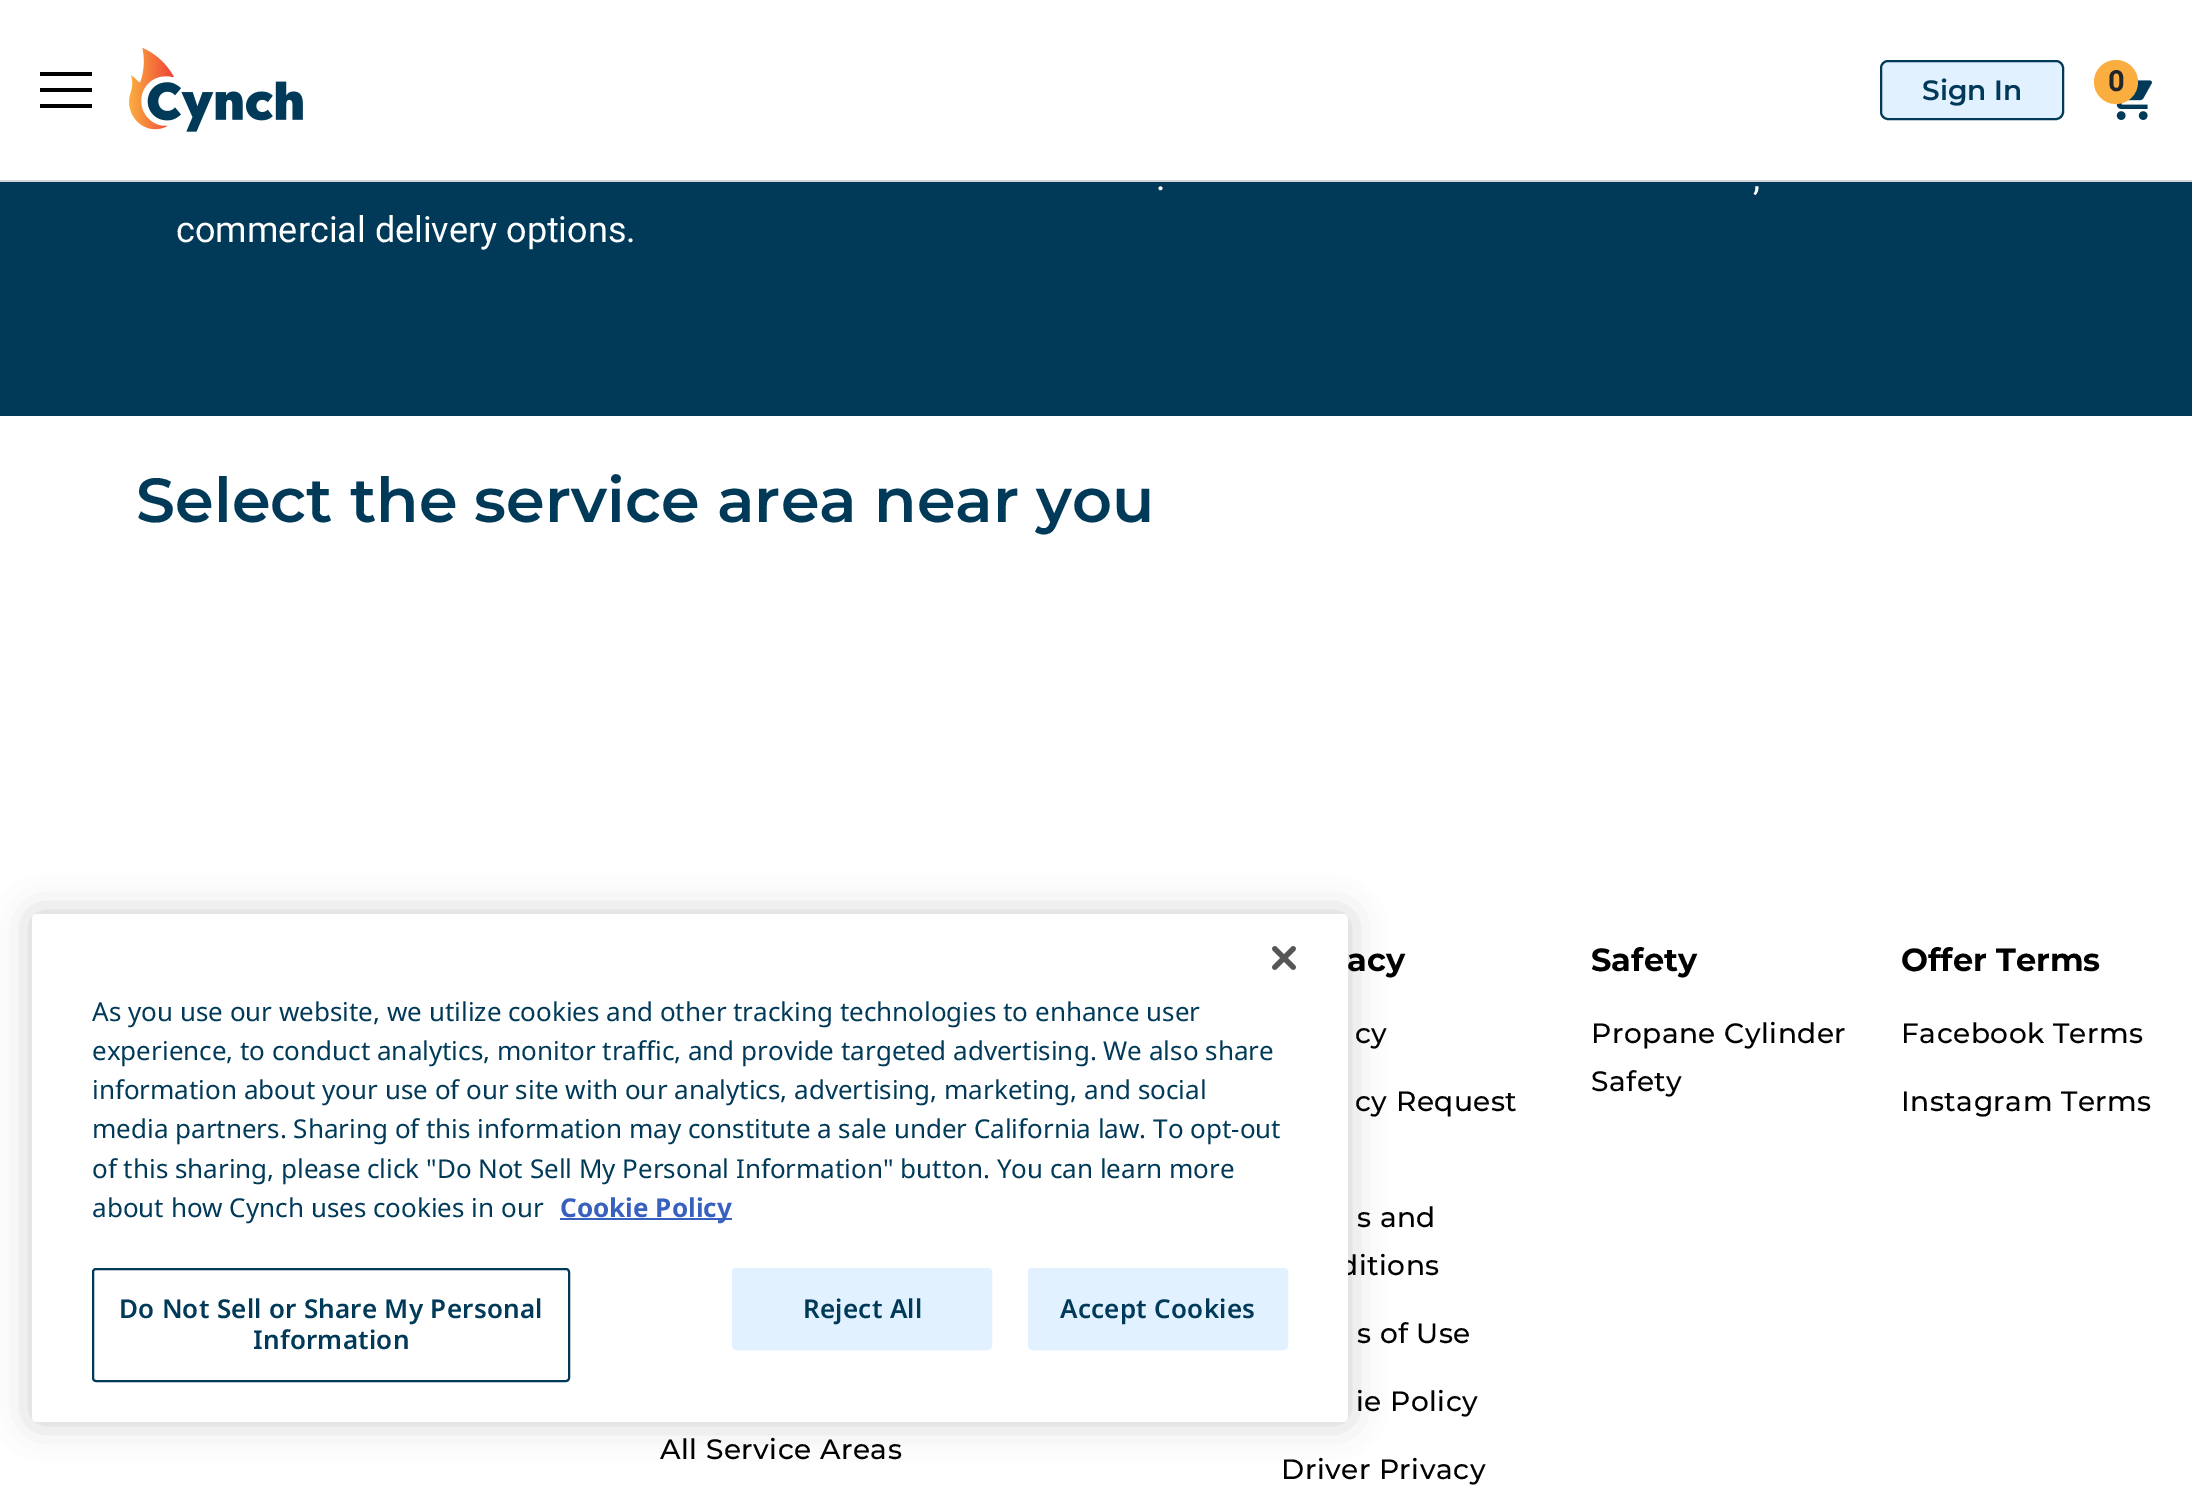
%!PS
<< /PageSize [2192 1486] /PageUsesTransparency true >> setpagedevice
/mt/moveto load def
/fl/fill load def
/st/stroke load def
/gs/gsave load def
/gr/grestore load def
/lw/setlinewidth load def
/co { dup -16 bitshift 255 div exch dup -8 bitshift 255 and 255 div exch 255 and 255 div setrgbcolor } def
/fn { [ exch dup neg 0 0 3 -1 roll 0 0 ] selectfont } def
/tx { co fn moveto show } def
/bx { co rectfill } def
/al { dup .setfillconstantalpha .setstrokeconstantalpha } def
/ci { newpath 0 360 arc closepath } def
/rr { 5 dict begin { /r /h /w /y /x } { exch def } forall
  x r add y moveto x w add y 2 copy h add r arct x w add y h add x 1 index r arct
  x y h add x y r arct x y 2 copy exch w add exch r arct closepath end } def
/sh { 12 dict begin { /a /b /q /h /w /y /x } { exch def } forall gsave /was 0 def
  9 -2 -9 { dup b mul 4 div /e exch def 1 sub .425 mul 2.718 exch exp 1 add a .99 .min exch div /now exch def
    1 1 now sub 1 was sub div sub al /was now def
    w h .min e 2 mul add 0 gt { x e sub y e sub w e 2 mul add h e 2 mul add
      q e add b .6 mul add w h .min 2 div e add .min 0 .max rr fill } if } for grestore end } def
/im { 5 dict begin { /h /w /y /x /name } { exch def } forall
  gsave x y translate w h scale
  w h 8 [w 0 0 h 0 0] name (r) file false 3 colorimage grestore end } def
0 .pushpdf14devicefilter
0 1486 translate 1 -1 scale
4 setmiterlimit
0 0 2192 1486 16#FFFFFF bx
0 180 2192 2 16#CED4DA bx
40 72 52 4 16#000000 bx
40 88 52 4 16#000000 bx
40 104 52 4 16#000000 bx
(media/1.raw) 129 48 174 84 im
16#E1F1FF co
1881 61 182 58 7 rr gs fl gr
16#003A58 co
2 lw
st
(media/2.raw) 2116 80 36 40 im
16#FAAE40 co
2116 82 22 ci fl
0 182 2192 234 16#003A58 bx
16#000000 co
32 914 1316 508 5 18 .2 sh
(Sign In) 1922 100 /Montserrat-SemiBold 28 16#003A58 tx
(0) 2108 91 /Roboto-Bold 28 16#212529 tx
(.) 1156 190 /Roboto-Regular 36 16#FFFFFF tx
(,) 1753 190 /Roboto-Regular 36 16#FFFFFF tx
(commercial delivery options.) 176 242 /Roboto-Regular 36 16#FFFFFF tx
(Select the service area near you) 136 522 /Montserrat-SemiBold 62.1 16#003A58 tx
/Montserrat-Medium 28 fn
16#000000 co
660 1459 mt .5 0 (All Service Areas) ashow
(acy) 1347 971 /Montserrat-Bold 32 16#000000 tx
/Montserrat-Medium 28 fn
1355 1043 mt .5 0 (cy) ashow
1355 1111 mt .5 0 (cy Request) ashow
1357 1227 mt .5 0 (s and) ashow
1339 1275 mt .5 0 (ditions) ashow
1357 1343 mt .5 0 (s of Use) ashow
1356 1411 mt .5 0 (ie Policy) ashow
1281 1479 mt .5 0 (Driver Privacy) ashow
(Safety) 1591 971 /Montserrat-Bold 32 16#000000 tx
/Montserrat-Medium 28 fn
1591 1043 mt .5 0 (Propane Cylinder) ashow
1591 1091 mt .5 0 (Safety) ashow
(Offer Terms) 1901 971 /Montserrat-Bold 32 16#000000 tx
/Montserrat-Medium 28 fn
1901 1043 mt .5 0 (Facebook Terms) ashow
1901 1111 mt .5 0 (Instagram Terms) ashow
16#FFFFFF co
32 914 1316 508 5 rr fl
(media/3.raw) 1272 946 24 24 im
(As you use our website, we utilize cookies and other tracking technologies to enhance user) 92 1021 /NotoSans-Regular 26 16#003A58 tx
(experience, to conduct analytics, monitor traffic, and provide targeted advertising. We also share) 92 1060 /NotoSans-Regular 26 16#003A58 tx
(information about your use of our site with our analytics, advertising, marketing, and social) 92 1099 /NotoSans-Regular 26 16#003A58 tx
(media partners. Sharing of this information may constitute a sale under California law. To opt-out) 92 1138 /NotoSans-Regular 26 16#003A58 tx
(of this sharing, please click "Do Not Sell My Personal Information" button. You can learn more) 92 1178 /NotoSans-Regular 26 16#003A58 tx
(about how Cynch uses cookies in our) 92 1217 /NotoSans-Regular 26 16#003A58 tx
560 1218 172 2 16#3860BE bx
(Cookie Policy) 560 1217 /NotoSans-Bold 26 16#3860BE tx
16#003A58 co
93 1269 476 112 3 rr st
/NotoSans-SemiBold 26 fn
119 1318 mt .25 0 (Do Not Sell or Share My Personal) ashow
253 1349 mt .25 0 (Information) ashow
16#E1F1FF co
733 1269 258 80 3 rr gs fl gr
st
16#003A58 co
803 1318 mt .25 0 (Reject All) ashow
16#E1F1FF co
1029 1269 258 80 3 rr gs fl gr
st
16#003A58 co
1060 1318 mt .25 0 (Accept Cookies) ashow
.poppdf14devicefilter showpage
